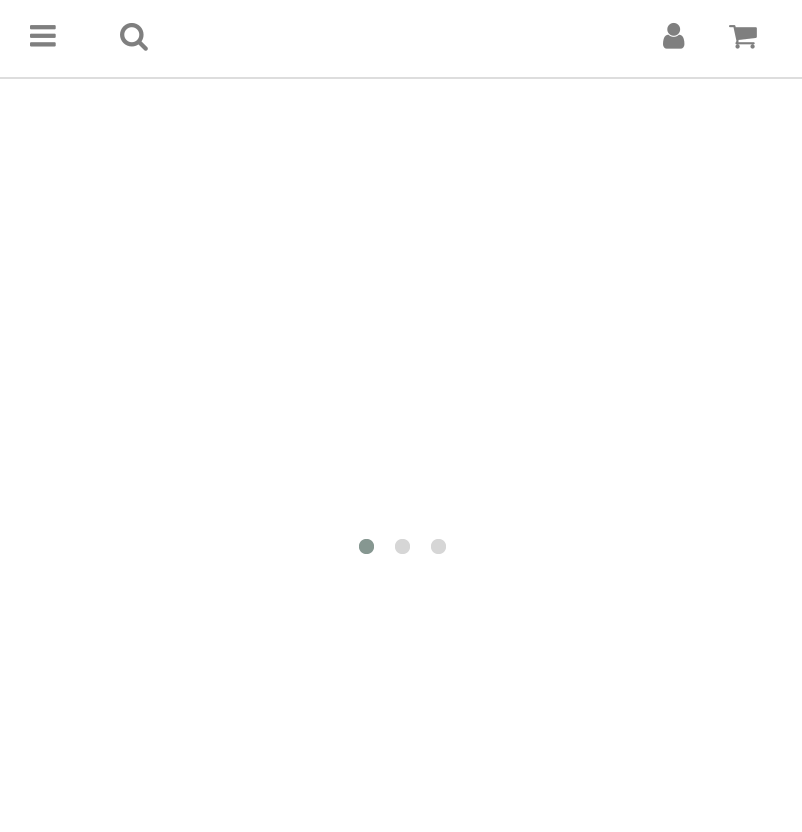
%!PS
<< /PageSize [802 832] >> setpagedevice
/fl/fill load def
/co { dup -16 bitshift 255 div exch dup -8 bitshift 255 and 255 div exch 255 and 255 div setrgbcolor } def
/bx { co rectfill } def
/ci { newpath 0 360 arc closepath } def
/im { 5 dict begin { /h /w /y /x /name } { exch def } forall
  gsave x y translate w h scale
  w h 8 [w 0 0 h 0 0] name (r) file false 3 colorimage grestore end } def
0 832 translate 1 -1 scale
4 setmiterlimit
0 0 802 832 16#FFFFFF bx
0 77 802 2 16#DDDDDD bx
(media/1.raw) 30 25 26 22 im
(media/2.raw) 120 23 28 28 im
(media/3.raw) 663 22 22 27 im
(media/4.raw) 729 25 28 24 im
16#869791 co
366.5 546.5 7.5 ci fl
16#D6D6D6 co
402.5 546.5 7.5 ci fl
438.5 546.5 7.5 ci fl
showpage
